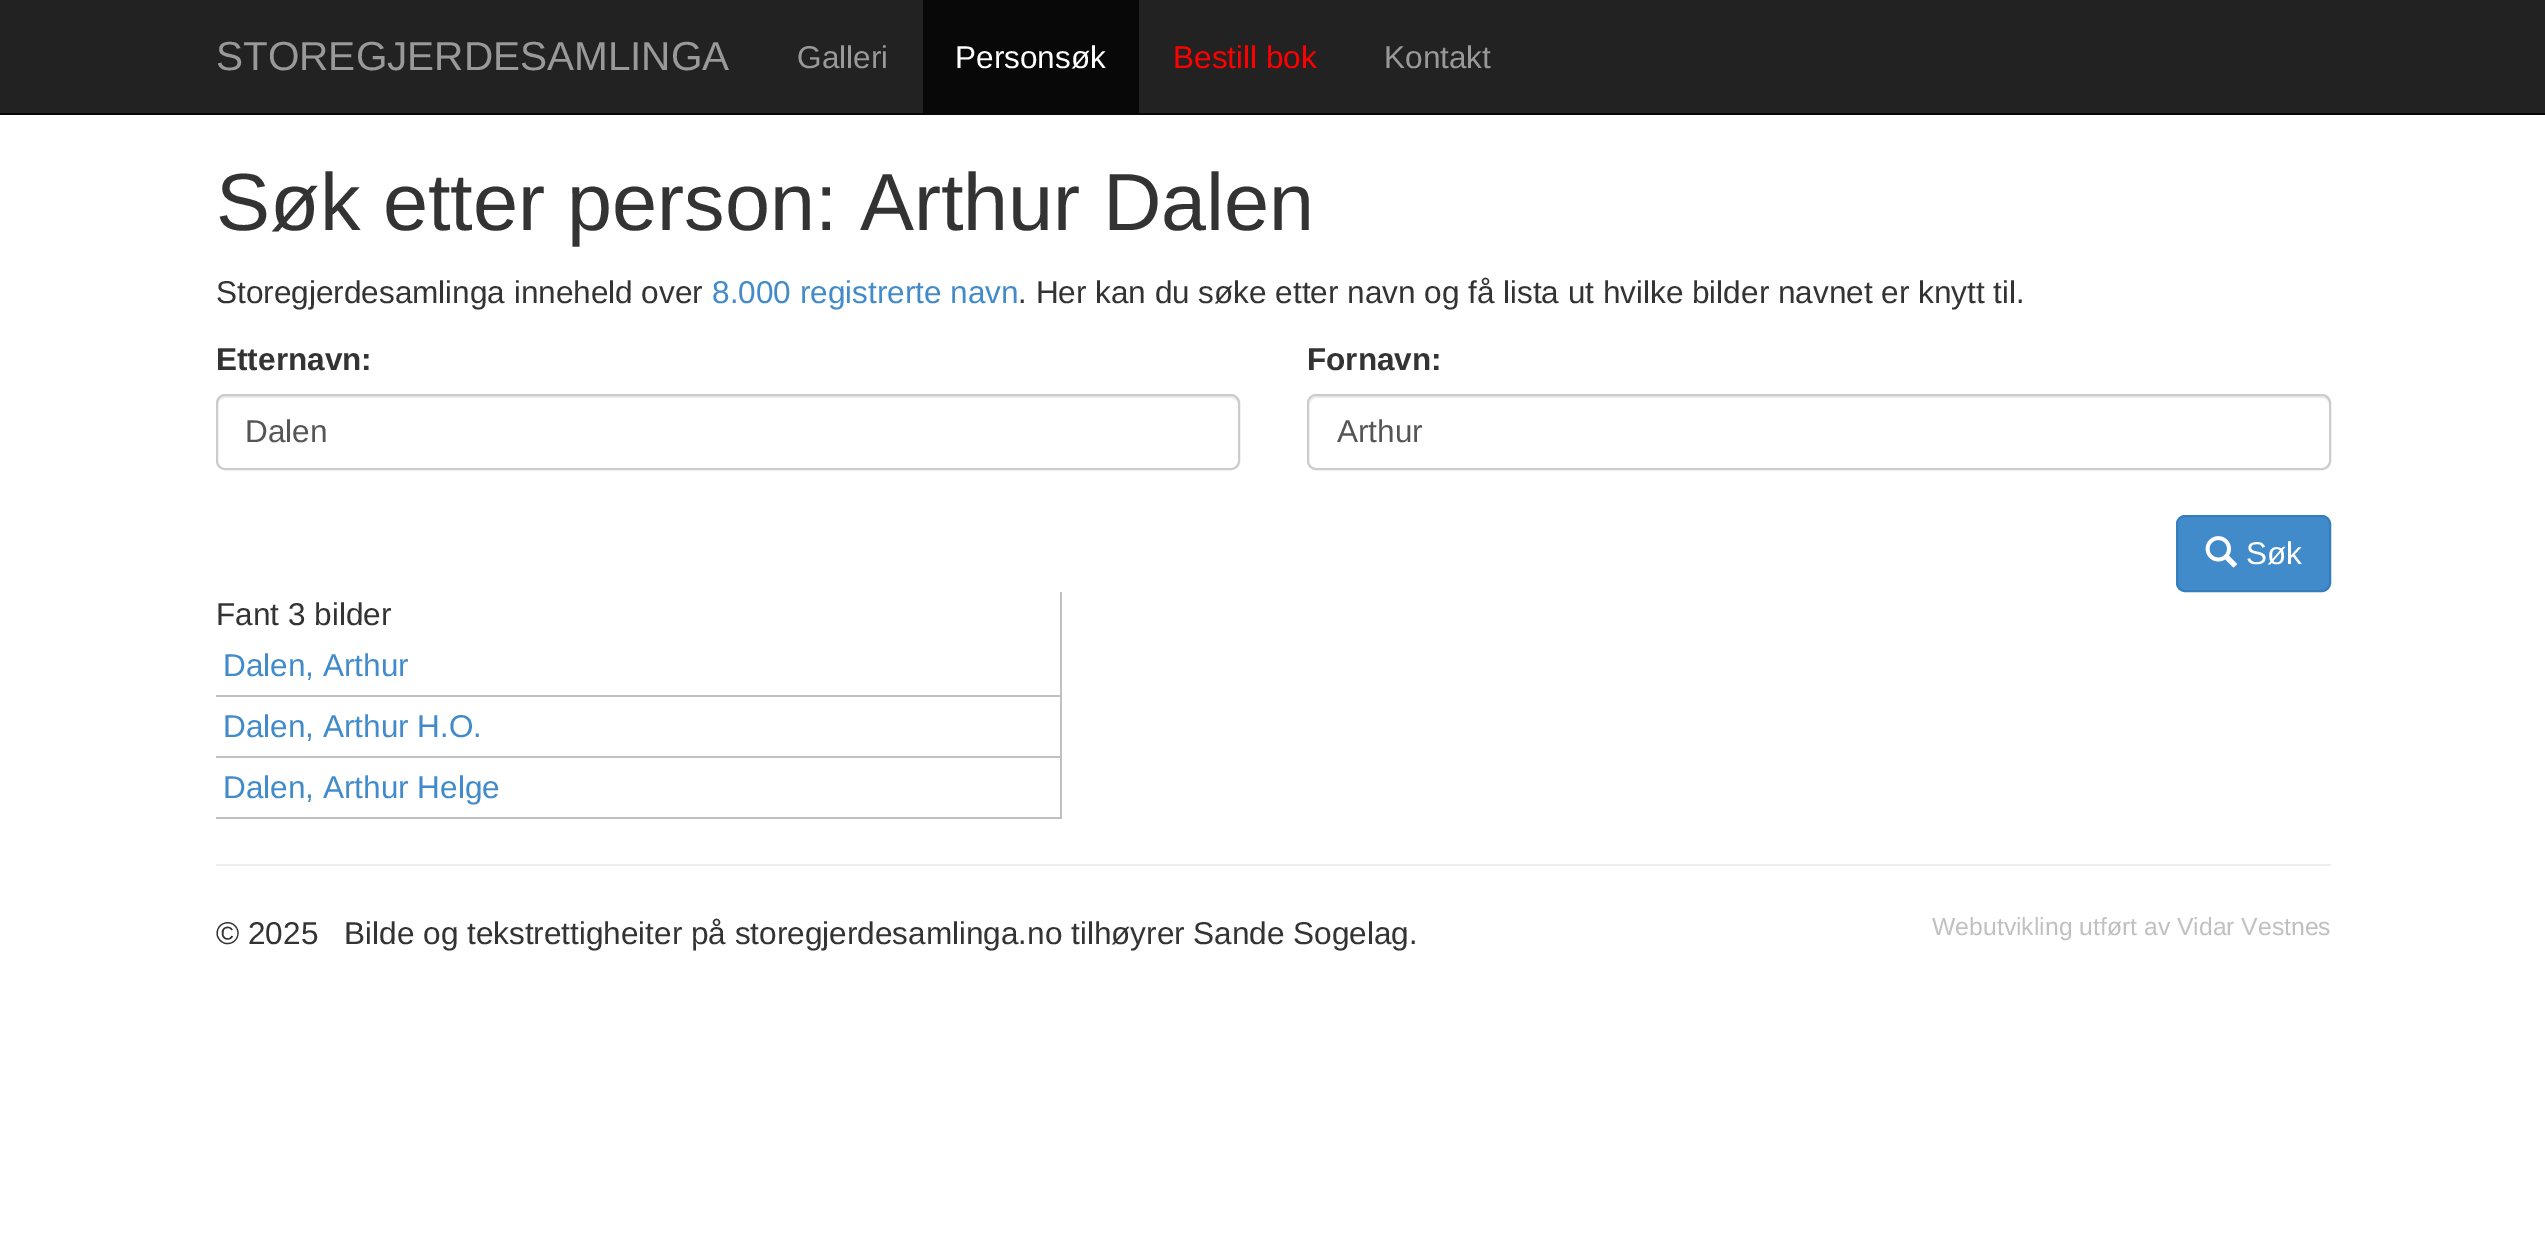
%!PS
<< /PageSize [2545 1247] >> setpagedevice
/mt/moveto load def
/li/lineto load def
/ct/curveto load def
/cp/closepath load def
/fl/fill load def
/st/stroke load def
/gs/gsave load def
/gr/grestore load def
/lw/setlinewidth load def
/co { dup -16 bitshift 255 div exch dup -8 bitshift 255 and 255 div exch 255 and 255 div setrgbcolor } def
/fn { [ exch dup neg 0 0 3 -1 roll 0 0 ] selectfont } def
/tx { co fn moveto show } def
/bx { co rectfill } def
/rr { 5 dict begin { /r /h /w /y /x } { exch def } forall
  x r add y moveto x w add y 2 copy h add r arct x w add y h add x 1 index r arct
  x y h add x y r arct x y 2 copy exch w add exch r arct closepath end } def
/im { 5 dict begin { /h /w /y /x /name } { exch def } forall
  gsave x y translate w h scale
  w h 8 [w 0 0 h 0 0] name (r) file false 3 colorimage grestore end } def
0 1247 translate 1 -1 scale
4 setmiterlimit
0 0 2545 1247 16#FFFFFF bx
0 0 2545 113 16#222222 bx
0 113 2545 2 16#080808 bx
923 0 216 113 16#080808 bx
16#ECECEC co
225 398 mt 1231 398 li 1234 398 1238 401 1238 405 ct 1238 403 li 1238 399 1235 396 1231 396 ct 225 396 li 221 396 218 399 218 403 ct 218 405 li 218 401 221 398 225 398 ct cp fl
16#CCCCCC co
2 lw
217 395 1022 74 8 rr st
16#ECECEC co
1316 398 mt 2322 398 li 2326 398 2329 401 2329 405 ct 2329 403 li 2329 399 2326 396 2322 396 ct 1317 396 li 1313 396 1310 399 1310 403 ct 1310 405 li 1310 401 1313 398 1316 398 ct cp fl
16#CCCCCC co
1308 395 1022 74 8 rr st
16#428BCA co
2177 516 153 75 8 rr gs fl gr
16#357EBD co
st
(media/1.raw) 2205 536 32 32 im
1060 592 2 227 16#C0C0C0 bx
216 695 844 2 16#C0C0C0 bx
216 756 844 2 16#C0C0C0 bx
216 817 844 2 16#C0C0C0 bx
216 864 2115 2 16#EEEEEE bx
(STOREGJERDESAMLINGA) 216 70 /LiberationSans-Regular 40.5 16#999999 tx
(Galleri) 797 68 /LiberationSans-Regular 31.5 16#999999 tx
(Personsøk) 955 68 /LiberationSans-Regular 31.5 16#FFFFFF tx
(Bestill bok) 1173 68 /LiberationSans-Regular 31.5 16#FF0000 tx
(Kontakt) 1384 68 /LiberationSans-Regular 31.5 16#999999 tx
(Søk etter person: Arthur Dalen) 216 230 /LiberationSans-Regular 81 16#333333 tx
(Storegjerdesamlinga inneheld over) 216 303 /LiberationSans-Regular 31.5 16#333333 tx
(8.000 registrerte navn) 712 303 /LiberationSans-Regular 31.5 16#428BCA tx
(. Her kan du søke etter navn og få lista ut hvilke bilder navnet er knytt til.) 1018 303 /LiberationSans-Regular 31.5 16#333333 tx
(Etternavn:) 216 370 /LiberationSans-Bold 31.5 16#333333 tx
(Dalen) 245 442 /LiberationSans-Regular 31.5 16#555555 tx
(Fornavn:) 1307 370 /LiberationSans-Bold 31.5 16#333333 tx
(Arthur) 1337 442 /LiberationSans-Regular 31.5 16#555555 tx
(Søk) 2246 564 /LiberationSans-Regular 31.5 16#FFFFFF tx
(Fant 3 bilder) 216 625 /LiberationSans-Regular 31.5 16#333333 tx
(Dalen, Arthur) 223 676 /LiberationSans-Regular 31.5 16#428BCA tx
(Dalen, Arthur H.O.) 223 737 /LiberationSans-Regular 31.5 16#428BCA tx
(Dalen, Arthur Helge) 223 798 /LiberationSans-Regular 31.5 16#428BCA tx
(© 2025   Bilde og tekstrettigheiter på storegjerdesamlinga.no tilhøyrer Sande Sogelag.) 216 944 /LiberationSans-Regular 31.5 16#333333 tx
(Webutvikling utført av Vidar Vestnes) 1932 935 /LiberationSans-Regular 24.75 16#C0C0C0 tx
showpage
